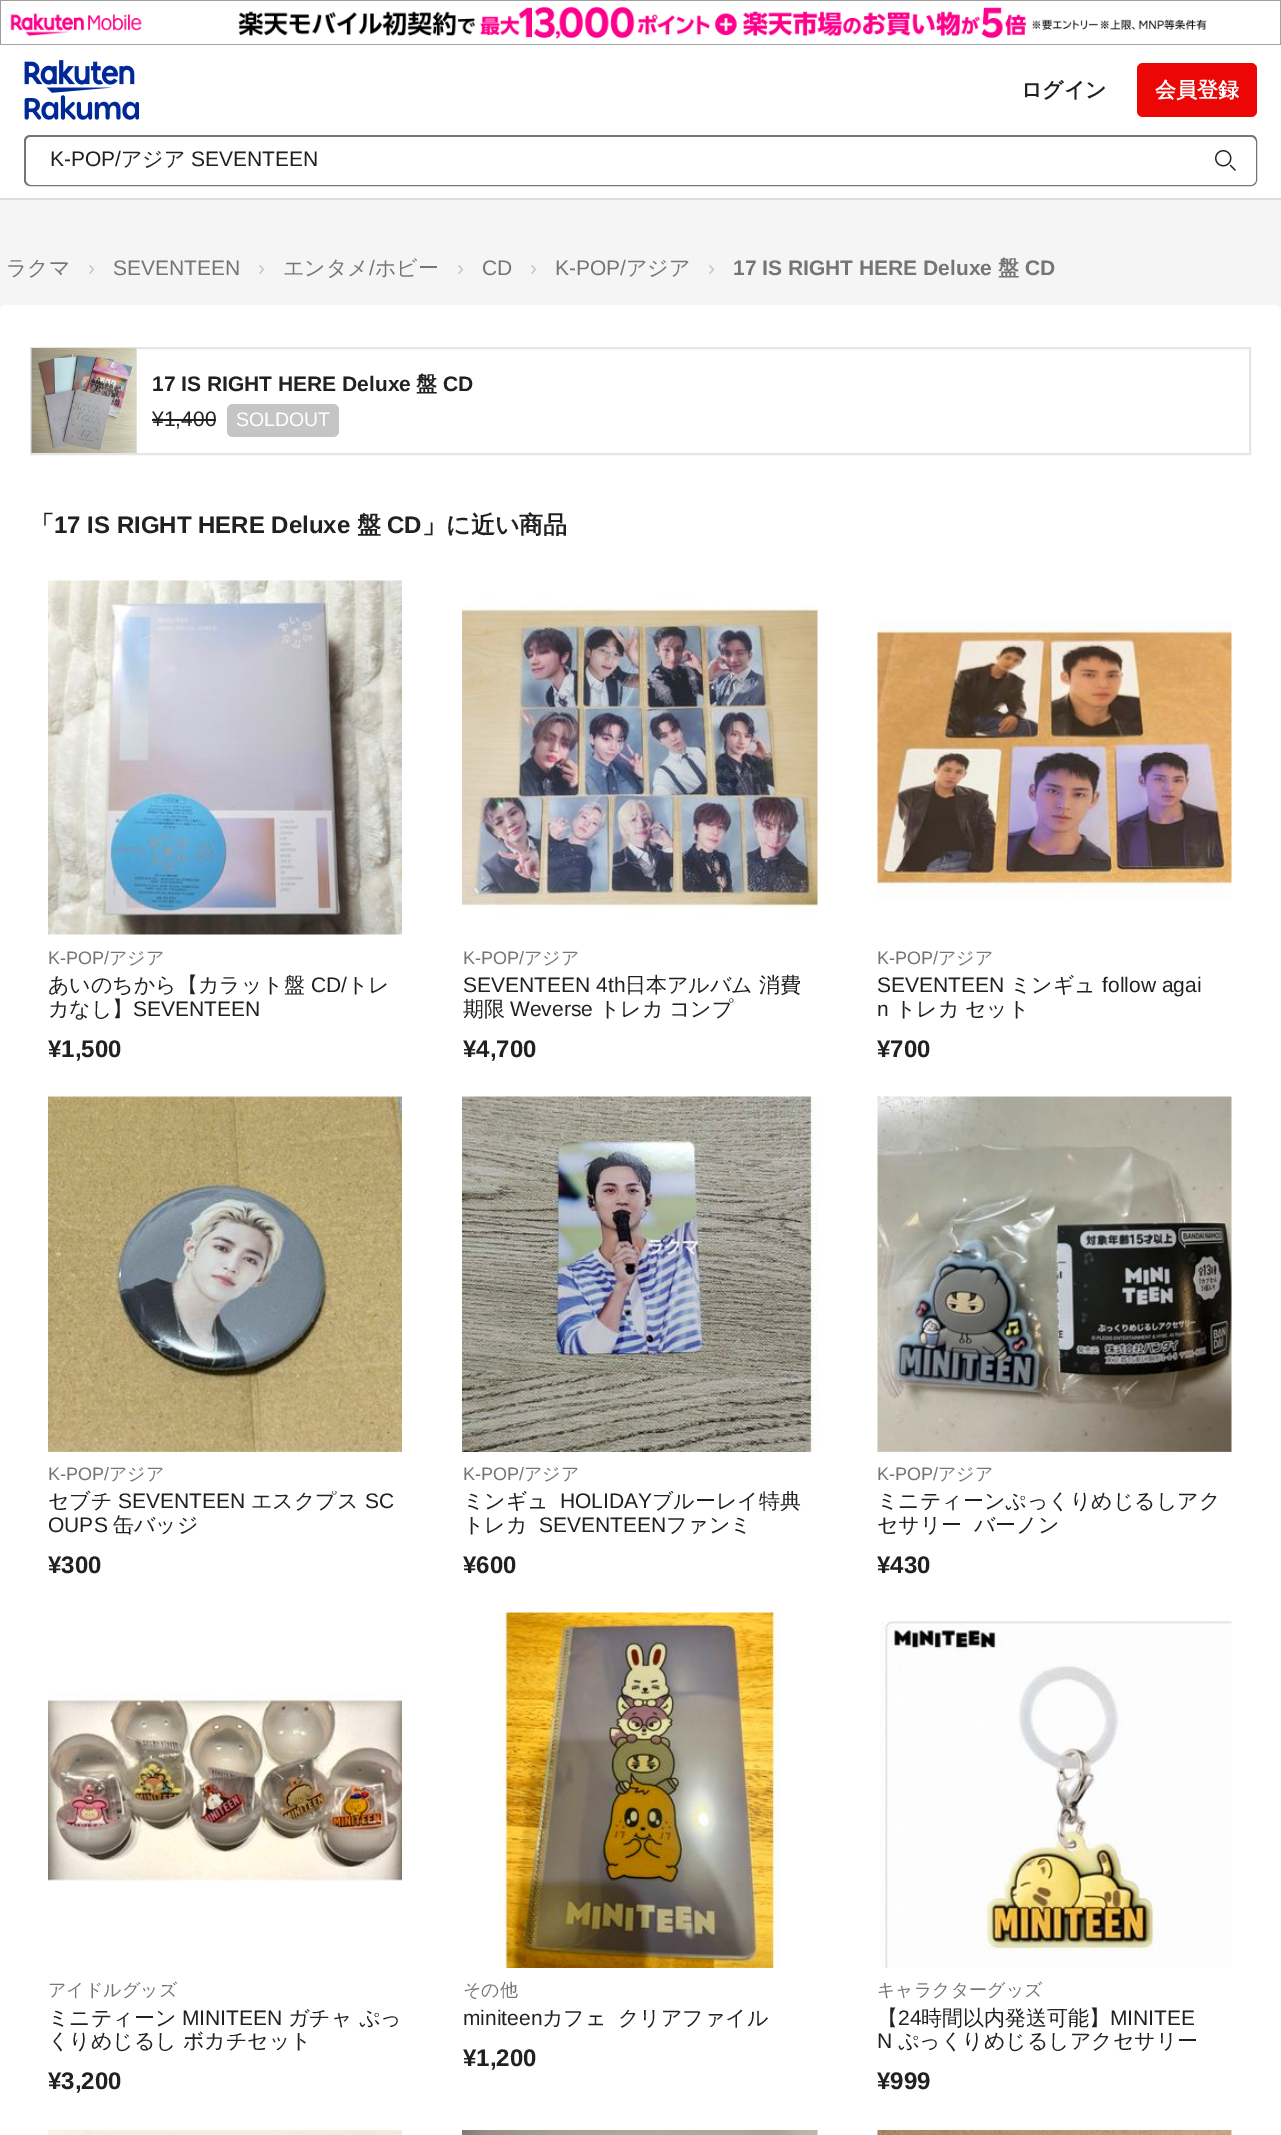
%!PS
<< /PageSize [1281 2135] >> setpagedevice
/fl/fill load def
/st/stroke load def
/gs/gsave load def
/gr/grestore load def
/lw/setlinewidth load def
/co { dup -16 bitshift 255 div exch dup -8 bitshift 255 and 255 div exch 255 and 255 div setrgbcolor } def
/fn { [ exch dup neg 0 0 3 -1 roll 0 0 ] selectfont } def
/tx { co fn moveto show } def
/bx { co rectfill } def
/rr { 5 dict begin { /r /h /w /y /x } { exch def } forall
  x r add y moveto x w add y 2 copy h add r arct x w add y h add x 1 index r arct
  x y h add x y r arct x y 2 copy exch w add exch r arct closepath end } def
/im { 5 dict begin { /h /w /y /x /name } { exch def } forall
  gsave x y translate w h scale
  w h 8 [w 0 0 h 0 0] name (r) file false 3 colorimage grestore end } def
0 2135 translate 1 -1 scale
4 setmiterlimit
0 0 1281 2135 16#F5F5F5 bx
(media/1.raw) 0 0 1281 45 im
0 45 1281 153 16#FFFFFF bx
0 198 1281 2 16#DDDDDD bx
(media/2.raw) 24 60 115 60 im
16#EC0606 co
1137 63 120 54 6 rr fl
16#757575 co
2 lw
25 136 1231 49 5 rr st
16#FFFFFF co
26 137 1230 48 6 rr fl
(media/3.raw) 1215 150 21 21 im
0 305 1281 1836 6 rr fl
16#E5E5E5 co
31 348 1219 106 rectstroke
136 348 1 105 16#EEEEEE bx
(media/4.raw) 31 348 106 105 im
152 419 64 2 16#212121 bx
16#C5C5C5 co
227 404 112 33 6 rr fl
(media/5.raw) 48 580 354 355 im
(media/6.raw) 462 598 356 319 im
(media/7.raw) 877 620 355 279 im
(media/8.raw) 48 1096 354 356 im
(media/9.raw) 462 1096 356 356 im
(media/10.raw) 877 1096 355 356 im
(media/11.raw) 48 1693 354 188 im
(media/12.raw) 497 1612 285 356 im
(media/13.raw) 880 1621 352 347 im
(media/14.raw) 48 2130 354 5 im
(media/15.raw) 462 2130 356 5 im
(media/16.raw) 877 2130 355 5 im
(ログイン) 1021 97 /WenQuanYiZenHei-Bold 21 16#212121 tx
(会員登録) 1155 97 /WenQuanYiZenHei-Bold 21 16#FFFFFF tx
(K-POP/) 50 166 /LiberationSans-Regular 21 16#212121 tx
(アジア) 121 166 /WenQuanYiZenHei-Medium 21 16#212121 tx
(SEVENTEEN) 191 166 /LiberationSans-Regular 21 16#212121 tx
(ラクマ) 6 275 /WenQuanYiZenHei-Medium 21 16#757575 tx
(›) 88 275 /LiberationSans-Regular 21 16#C5C5C5 tx
(SEVENTEEN) 113 275 /LiberationSans-Regular 21 16#757575 tx
(›) 258 275 /LiberationSans-Regular 21 16#C5C5C5 tx
(エンタメ) 283 275 /WenQuanYiZenHei-Medium 21 16#757575 tx
(/) 369 275 /LiberationSans-Regular 21 16#757575 tx
(ホビー) 375 275 /WenQuanYiZenHei-Medium 21 16#757575 tx
(›) 457 275 /LiberationSans-Regular 21 16#C5C5C5 tx
(CD) 482 275 /LiberationSans-Regular 21 16#757575 tx
(›) 530 275 /LiberationSans-Regular 21 16#C5C5C5 tx
(K-POP/) 555 275 /LiberationSans-Regular 21 16#757575 tx
(アジア) 626 275 /WenQuanYiZenHei-Medium 21 16#757575 tx
(›) 708 275 /LiberationSans-Regular 21 16#C5C5C5 tx
(17 IS RIGHT HERE Deluxe) 733 275 /LiberationSans-Bold 21 16#757575 tx
(盤) 998 275 /WenQuanYiZenHei-Bold 21 16#757575 tx
(CD) 1025 275 /LiberationSans-Bold 21 16#757575 tx
(17 IS RIGHT HERE Deluxe) 152 391 /LiberationSans-Bold 21 16#212121 tx
(盤) 416 391 /WenQuanYiZenHei-Bold 21 16#212121 tx
(CD) 443 391 /LiberationSans-Bold 21 16#212121 tx
(¥1,400) 152 426 /LiberationSans-Regular 21 16#212121 tx
(SOLDOUT) 236 426 /LiberationSans-Regular 19.5 16#FFFFFF tx
(「) 30 533 /WenQuanYiZenHei-Bold 24 16#212121 tx
(17 IS RIGHT HERE Deluxe) 54 533 /LiberationSans-Bold 24 16#212121 tx
(盤) 357 533 /WenQuanYiZenHei-Bold 24 16#212121 tx
(CD) 387 533 /LiberationSans-Bold 24 16#212121 tx
(」に近い商品) 422 533 /WenQuanYiZenHei-Bold 24 16#212121 tx
(K-POP/) 48 964 /LiberationSans-Regular 18 16#757575 tx
(アジア) 109 964 /WenQuanYiZenHei-Medium 18 16#757575 tx
(あいのちから【カラット盤) 48 992 /WenQuanYiZenHei-Medium 21 16#212121 tx
(CD/) 311 992 /LiberationSans-Regular 21 16#212121 tx
(トレ) 347 992 /WenQuanYiZenHei-Medium 21 16#212121 tx
(カなし】) 48 1016 /WenQuanYiZenHei-Medium 21 16#212121 tx
(SEVENTEEN) 133 1016 /LiberationSans-Regular 21 16#212121 tx
(¥1,500) 48 1057 /LiberationSans-Bold 24 16#212121 tx
(K-POP/) 463 964 /LiberationSans-Regular 18 16#757575 tx
(アジア) 524 964 /WenQuanYiZenHei-Medium 18 16#757575 tx
(SEVENTEEN 4th) 463 992 /LiberationSans-Regular 21 16#212121 tx
(日本アルバム) 625 992 /WenQuanYiZenHei-Medium 21 16#212121 tx
(消費) 759 992 /WenQuanYiZenHei-Medium 21 16#212121 tx
(期限) 463 1016 /WenQuanYiZenHei-Medium 21 16#212121 tx
(Weverse) 510 1016 /LiberationSans-Regular 21 16#212121 tx
(トレカ) 599 1016 /WenQuanYiZenHei-Medium 21 16#212121 tx
(コンプ) 669 1016 /WenQuanYiZenHei-Medium 21 16#212121 tx
(¥4,700) 463 1057 /LiberationSans-Bold 24 16#212121 tx
(K-POP/) 877 964 /LiberationSans-Regular 18 16#757575 tx
(アジア) 938 964 /WenQuanYiZenHei-Medium 18 16#757575 tx
(SEVENTEEN) 877 992 /LiberationSans-Regular 21 16#212121 tx
(ミンギュ) 1010 992 /WenQuanYiZenHei-Medium 21 16#212121 tx
(follow agai) 1102 992 /LiberationSans-Regular 21 16#212121 tx
(n) 877 1016 /LiberationSans-Regular 21 16#212121 tx
(トレカ) 895 1016 /WenQuanYiZenHei-Medium 21 16#212121 tx
(セット) 965 1016 /WenQuanYiZenHei-Medium 21 16#212121 tx
(¥700) 877 1057 /LiberationSans-Bold 24 16#212121 tx
(K-POP/) 48 1480 /LiberationSans-Regular 18 16#757575 tx
(アジア) 109 1480 /WenQuanYiZenHei-Medium 18 16#757575 tx
(セブチ) 48 1508 /WenQuanYiZenHei-Medium 21 16#212121 tx
(SEVENTEEN) 118 1508 /LiberationSans-Regular 21 16#212121 tx
gs
48 1491 354 47 rectclip
(エスクプス) 251 1508 /WenQuanYiZenHei-Medium 21 16#212121 tx
gr
(SC) 365 1508 /LiberationSans-Regular 21 16#212121 tx
(OUPS) 48 1532 /LiberationSans-Regular 21 16#212121 tx
(缶バッジ) 113 1532 /WenQuanYiZenHei-Medium 21 16#212121 tx
(¥300) 48 1573 /LiberationSans-Bold 24 16#212121 tx
(K-POP/) 463 1480 /LiberationSans-Regular 18 16#757575 tx
(アジア) 524 1480 /WenQuanYiZenHei-Medium 18 16#757575 tx
(ミンギュ) 463 1508 /WenQuanYiZenHei-Medium 21 16#212121 tx
(HOLIDAY) 560 1508 /LiberationSans-Regular 21 16#212121 tx
gs
462 1491 356 47 rectclip
(ブルーレイ特典) 652 1508 /WenQuanYiZenHei-Medium 21 16#212121 tx
gr
(トレカ) 463 1532 /WenQuanYiZenHei-Medium 21 16#212121 tx
(SEVENTEEN) 539 1532 /LiberationSans-Regular 21 16#212121 tx
(ファンミ) 666 1532 /WenQuanYiZenHei-Medium 21 16#212121 tx
(¥600) 463 1573 /LiberationSans-Bold 24 16#212121 tx
(K-POP/) 877 1480 /LiberationSans-Regular 18 16#757575 tx
(アジア) 938 1480 /WenQuanYiZenHei-Medium 18 16#757575 tx
(ミニティーンぷっくりめじるしアク) 877 1508 /WenQuanYiZenHei-Medium 21 16#212121 tx
(セサリー) 877 1532 /WenQuanYiZenHei-Medium 21 16#212121 tx
(バーノン) 974 1532 /WenQuanYiZenHei-Medium 21 16#212121 tx
(¥430) 877 1573 /LiberationSans-Bold 24 16#212121 tx
(アイドルグッズ) 48 1996 /WenQuanYiZenHei-Medium 18 16#757575 tx
(ミニティーン) 48 2025 /WenQuanYiZenHei-Medium 21 16#212121 tx
(MINITEEN) 182 2025 /LiberationSans-Regular 21 16#212121 tx
(ガチャ) 288 2025 /WenQuanYiZenHei-Medium 21 16#212121 tx
(ぷっ) 359 2025 /WenQuanYiZenHei-Medium 21 16#212121 tx
(くりめじるし) 48 2048 /WenQuanYiZenHei-Medium 21 16#212121 tx
(ボカチセット) 183 2048 /WenQuanYiZenHei-Medium 21 16#212121 tx
(¥3,200) 48 2089 /LiberationSans-Bold 24 16#212121 tx
(その他) 463 1996 /WenQuanYiZenHei-Medium 18 16#757575 tx
(miniteen) 463 2025 /LiberationSans-Regular 21 16#212121 tx
(カフェ) 542 2025 /WenQuanYiZenHei-Medium 21 16#212121 tx
(クリアファイル) 618 2025 /WenQuanYiZenHei-Medium 21 16#212121 tx
(¥1,200) 463 2066 /LiberationSans-Bold 24 16#212121 tx
(キャラクターグッズ) 877 1996 /WenQuanYiZenHei-Medium 18 16#757575 tx
(【) 877 2025 /WenQuanYiZenHei-Medium 21 16#212121 tx
(24) 898 2025 /LiberationSans-Regular 21 16#212121 tx
(時間以内発送可能】) 921 2025 /WenQuanYiZenHei-Medium 21 16#212121 tx
(MINITEE) 1110 2025 /LiberationSans-Regular 21 16#212121 tx
(N) 877 2048 /LiberationSans-Regular 21 16#212121 tx
(ぷっくりめじるしアクセサリー) 898 2048 /WenQuanYiZenHei-Medium 21 16#212121 tx
(¥999) 877 2089 /LiberationSans-Bold 24 16#212121 tx
showpage
